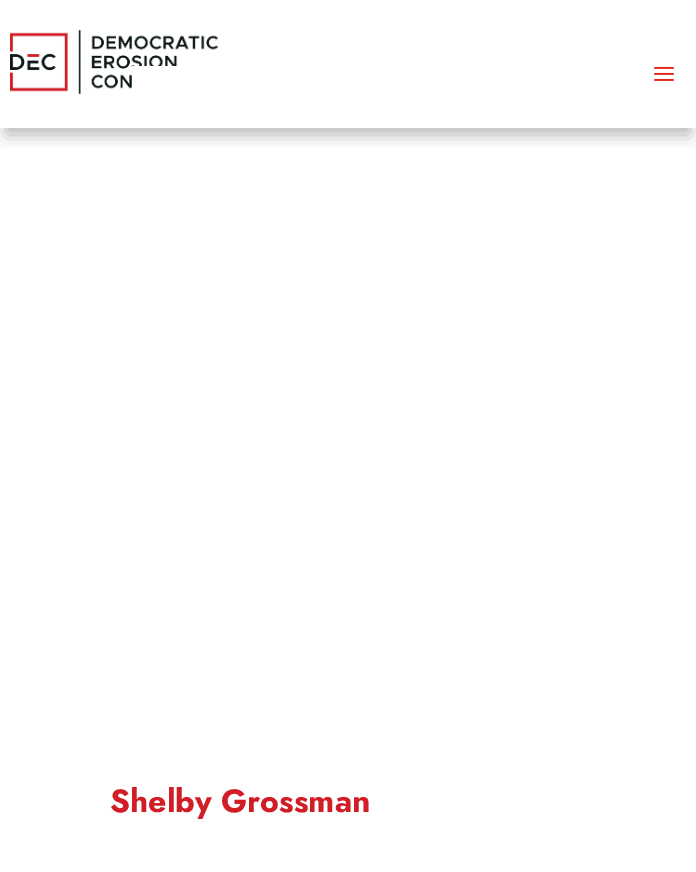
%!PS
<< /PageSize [696 872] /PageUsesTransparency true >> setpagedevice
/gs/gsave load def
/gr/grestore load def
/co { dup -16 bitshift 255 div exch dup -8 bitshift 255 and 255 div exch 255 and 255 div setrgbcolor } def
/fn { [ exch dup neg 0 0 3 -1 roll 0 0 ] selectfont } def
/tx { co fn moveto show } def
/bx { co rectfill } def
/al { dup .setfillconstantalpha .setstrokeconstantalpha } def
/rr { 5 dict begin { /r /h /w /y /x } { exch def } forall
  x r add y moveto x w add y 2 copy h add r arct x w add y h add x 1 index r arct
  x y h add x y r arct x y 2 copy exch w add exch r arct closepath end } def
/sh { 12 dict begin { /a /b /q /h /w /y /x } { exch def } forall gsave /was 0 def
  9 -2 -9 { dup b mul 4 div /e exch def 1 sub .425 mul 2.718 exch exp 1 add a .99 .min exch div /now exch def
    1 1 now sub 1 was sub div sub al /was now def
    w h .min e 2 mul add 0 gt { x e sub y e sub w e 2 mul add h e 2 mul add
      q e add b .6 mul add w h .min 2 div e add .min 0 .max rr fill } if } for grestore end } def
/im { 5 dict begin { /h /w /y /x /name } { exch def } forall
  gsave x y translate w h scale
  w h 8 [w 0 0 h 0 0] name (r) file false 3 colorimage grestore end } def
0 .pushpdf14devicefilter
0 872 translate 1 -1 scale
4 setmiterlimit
0 0 696 872 16#FFFFFF bx
gs
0 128 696 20 rectclip
16#000000 co
6 18 684 116 0 9 .3 sh
gr
(media/1.raw) 10 30 209 64 im
132 66 87 23 16#FFFFFF bx
(media/2.raw) 654 66 20 15 im
(Shelby Grossman) 110 812 /Jost-Bold 32 16#D11D25 tx
.poppdf14devicefilter showpage
